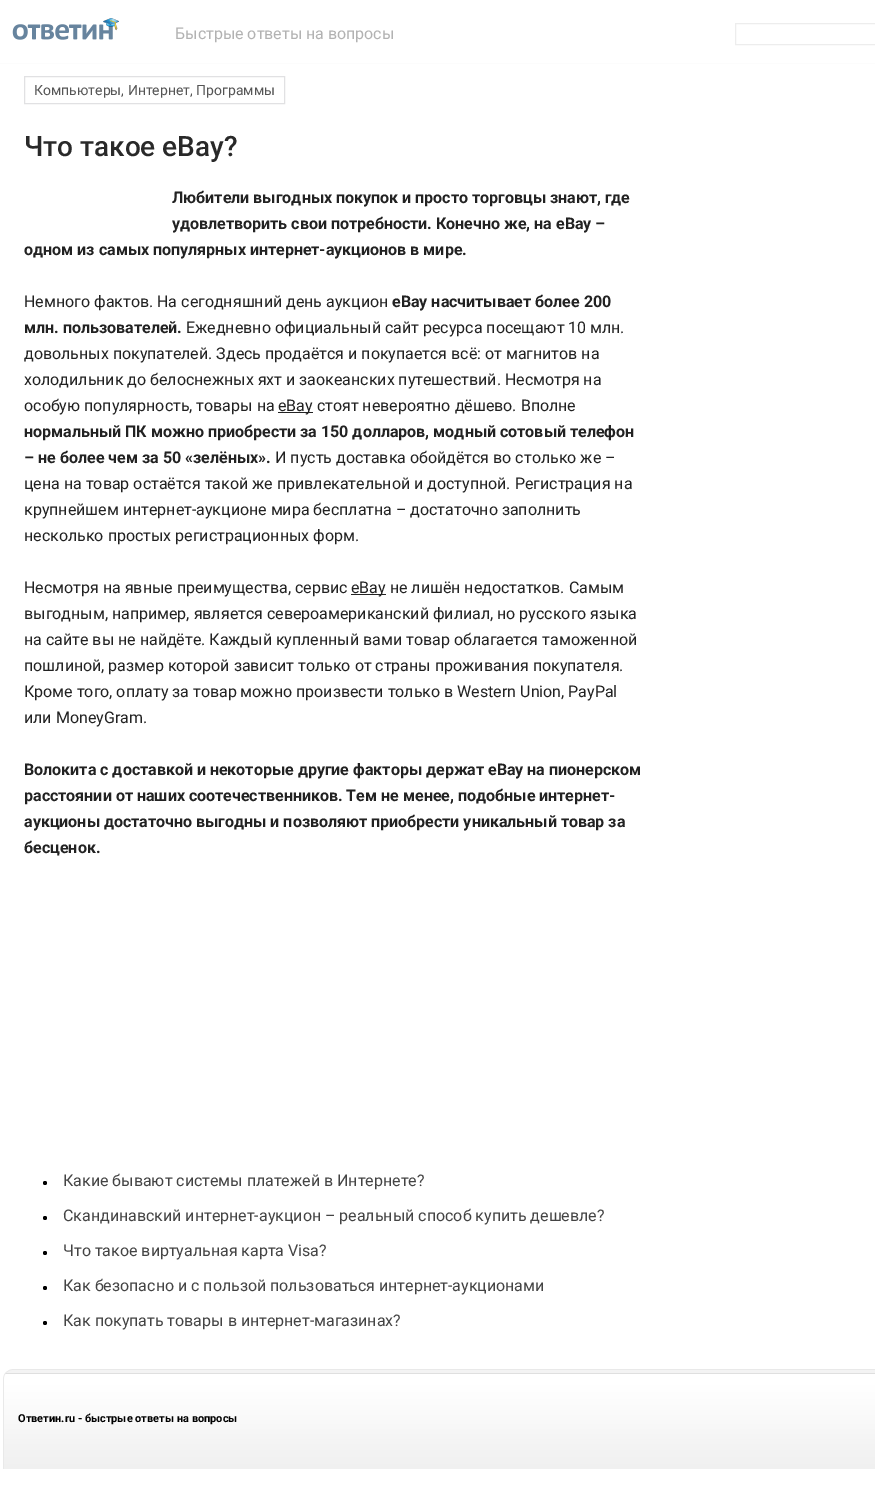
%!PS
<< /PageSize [875 1499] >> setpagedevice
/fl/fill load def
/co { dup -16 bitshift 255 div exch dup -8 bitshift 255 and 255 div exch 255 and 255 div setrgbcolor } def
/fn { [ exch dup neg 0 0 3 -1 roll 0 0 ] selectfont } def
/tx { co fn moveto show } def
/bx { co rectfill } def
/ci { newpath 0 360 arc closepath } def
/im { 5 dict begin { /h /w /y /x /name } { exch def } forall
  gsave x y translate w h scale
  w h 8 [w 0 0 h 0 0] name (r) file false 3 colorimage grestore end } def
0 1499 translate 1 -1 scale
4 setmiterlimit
0 0 875 1499 16#FFFFFF bx
0 63 875 1 16#FCFCFC bx
(media/1.raw) 12 18 107 22 im
16#EDEDED co
735.5 23.5 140 21 rectstroke
16#E1E1E3 co
24.5 76.5 260 27 rectstroke
278 412 35 1 16#222222 bx
351 594 35 1 16#222222 bx
16#000000 co
45 1183 2 ci fl
45 1218 2 ci fl
45 1253 2 ci fl
45 1288 2 ci fl
45 1323 2 ci fl
(media/2.raw) 3 1369 872 100 im
(Быстрые ответы на вопросы) 175 39 /Roboto-Regular 16 16#B2B2B2 tx
(Компьютеры, Интернет, Программы) 34 95 /Roboto-Regular 14 16#555555 tx
(Что такое eBay?) 24 156 /Roboto-Medium 28 16#292929 tx
(Любители выгодных покупок и просто торговцы знают, где) 172 203 /Roboto-Bold 16 16#222222 tx
(удовлетворить свои потребности. Конечно же, на eBay –) 172 229 /Roboto-Bold 16 16#222222 tx
(одном из самых популярных интернет-аукционов в мире.) 24 255 /Roboto-Bold 16 16#222222 tx
(Немного фактов. На сегодняшний день аукцион) 24 307 /Roboto-Regular 16 16#222222 tx
(eBay насчитывает более 200) 392 307 /Roboto-Bold 16 16#222222 tx
(млн. пользователей.) 24 333 /Roboto-Bold 16 16#222222 tx
(Ежедневно официальный сайт ресурса посещают 10 млн.) 186 333 /Roboto-Regular 16 16#222222 tx
(довольных покупателей. Здесь продаётся и покупается всё: от магнитов на) 24 359 /Roboto-Regular 16 16#222222 tx
(холодильник до белоснежных яхт и заокеанских путешествий. Несмотря на) 24 385 /Roboto-Regular 16 16#222222 tx
(особую популярность, товары на) 24 411 /Roboto-Regular 16 16#222222 tx
(eBay стоят невероятно дёшево. Вполне) 278 411 /Roboto-Regular 16 16#222222 tx
(нормальный ПК можно приобрести за 150 долларов, модный сотовый телефон) 24 437 /Roboto-Bold 16 16#222222 tx
(– не более чем за 50 «зелёных».) 24 463 /Roboto-Bold 16 16#222222 tx
(И пусть доставка обойдётся во столько же –) 275 463 /Roboto-Regular 16 16#222222 tx
(цена на товар остаётся такой же привлекательной и доступной. Регистрация на) 24 489 /Roboto-Regular 16 16#222222 tx
(крупнейшем интернет-аукционе мира бесплатна – достаточно заполнить) 24 515 /Roboto-Regular 16 16#222222 tx
(несколько простых регистрационных форм.) 24 541 /Roboto-Regular 16 16#222222 tx
(Несмотря на явные преимущества, сервис) 24 593 /Roboto-Regular 16 16#222222 tx
(eBay не лишён недостатков. Самым) 351 593 /Roboto-Regular 16 16#222222 tx
(выгодным, например, является североамериканский филиал, но русского языка) 24 619 /Roboto-Regular 16 16#222222 tx
(на сайте вы не найдёте. Каждый купленный вами товар облагается таможенной) 24 645 /Roboto-Regular 16 16#222222 tx
(пошлиной, размер которой зависит только от страны проживания покупателя.) 24 671 /Roboto-Regular 16 16#222222 tx
(Кроме того, оплату за товар можно произвести только в Western Union, PayPal) 24 697 /Roboto-Regular 16 16#222222 tx
(или MoneyGram.) 24 723 /Roboto-Regular 16 16#222222 tx
(Волокита с доставкой и некоторые другие факторы держат eBay на пионерском) 24 775 /Roboto-Bold 16 16#222222 tx
(расстоянии от наших соотечественников. Тем не менее, подобные интернет-) 24 801 /Roboto-Bold 16 16#222222 tx
(аукционы достаточно выгодны и позволяют приобрести уникальный товар за) 24 827 /Roboto-Bold 16 16#222222 tx
(бесценок.) 24 853 /Roboto-Bold 16 16#222222 tx
(Какие бывают системы платежей в Интернете?) 63 1186 /Roboto-Regular 16 16#444444 tx
(Скандинавский интернет-аукцион – реальный способ купить дешевле?) 63 1221 /Roboto-Regular 16 16#444444 tx
(Что такое виртуальная карта Visa?) 63 1256 /Roboto-Regular 16 16#444444 tx
(Как безопасно и с пользой пользоваться интернет-аукционами) 63 1291 /Roboto-Regular 16 16#444444 tx
(Как покупать товары в интернет-магазинах?) 63 1326 /Roboto-Regular 16 16#444444 tx
(Ответин.ru - быстрые ответы на вопросы) 18 1422 /Roboto-Bold 11 16#000000 tx
showpage
